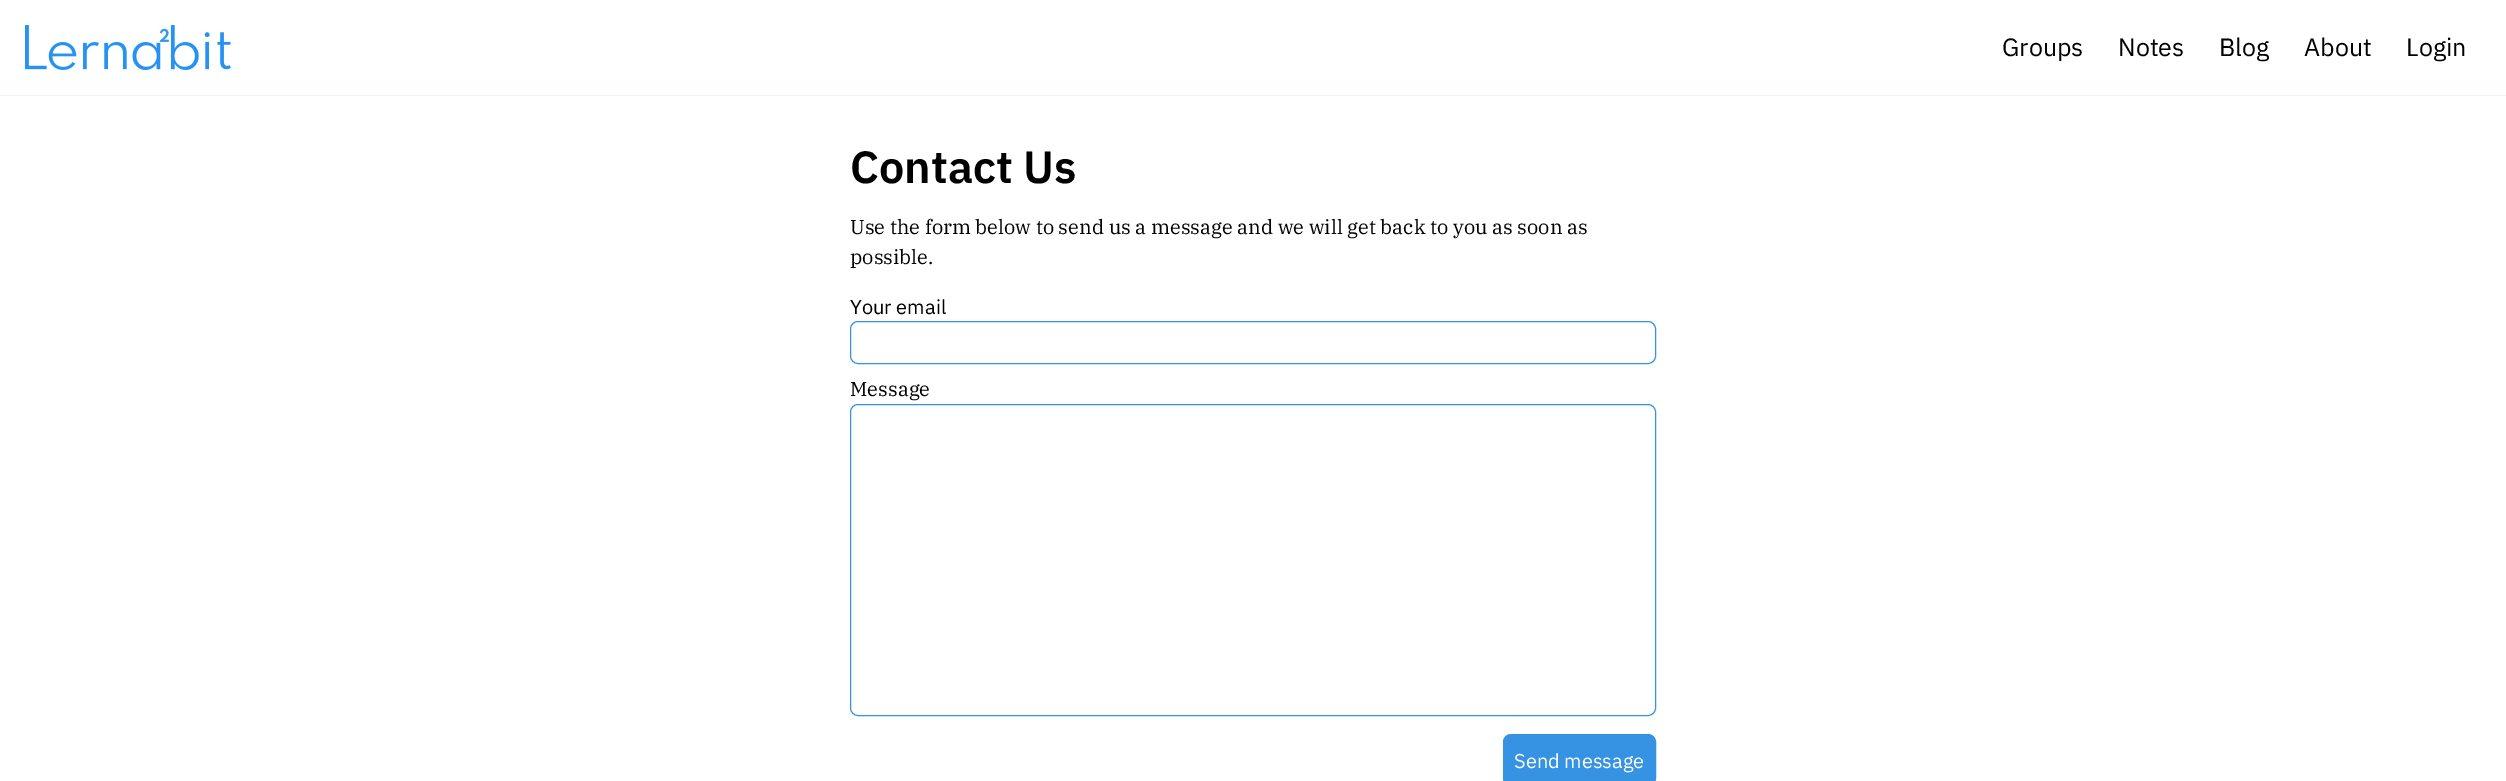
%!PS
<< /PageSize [2506 781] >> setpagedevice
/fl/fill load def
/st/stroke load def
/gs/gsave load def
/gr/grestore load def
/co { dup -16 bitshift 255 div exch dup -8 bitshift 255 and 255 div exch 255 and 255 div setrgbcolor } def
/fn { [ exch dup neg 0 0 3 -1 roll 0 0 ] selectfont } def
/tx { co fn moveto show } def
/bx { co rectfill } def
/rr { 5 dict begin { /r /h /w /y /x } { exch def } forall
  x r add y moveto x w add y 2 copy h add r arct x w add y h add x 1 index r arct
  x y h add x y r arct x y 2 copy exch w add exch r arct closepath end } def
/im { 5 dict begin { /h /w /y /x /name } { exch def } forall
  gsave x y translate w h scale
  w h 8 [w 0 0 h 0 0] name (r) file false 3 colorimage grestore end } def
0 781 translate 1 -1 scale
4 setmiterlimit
0 0 2506 781 16#FFFFFF bx
0 95 2506 1 16#EBF5FA bx
(media/1.raw) 25 25 206 45 im
16#3692E2 co
850.5 321.5 805 42 7.5 rr st
850.5 404.5 805 311 7.5 rr st
1503.5 734.5 152 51 7.5 rr gs fl gr
st
(Groups) 2002 56 /IBMPlexSans-Regular 25 16#000000 tx
(Notes) 2118 56 /IBMPlexSans-Regular 25 16#000000 tx
(Blog) 2219 56 /IBMPlexSans-Regular 25 16#000000 tx
(About) 2304 56 /IBMPlexSans-Regular 25 16#000000 tx
(Login) 2406 56 /IBMPlexSans-Regular 25 16#000000 tx
(Contact Us) 850 183 /IBMPlexSans-SemiBold 45 16#000000 tx
(Use the form below to send us a message and we will get back to you as soon as) 850 234 /IBMPlexSerif-Regular 20 16#000000 tx
(possible.) 850 264 /IBMPlexSerif-Regular 20 16#000000 tx
(Your email) 850 314 /IBMPlexSans-Regular 20 16#000000 tx
(Message) 850 396 /IBMPlexSerif-Regular 20 16#000000 tx
(Send message) 1514 768 /IBMPlexSans-Regular 20 16#FFFFFF tx
showpage
